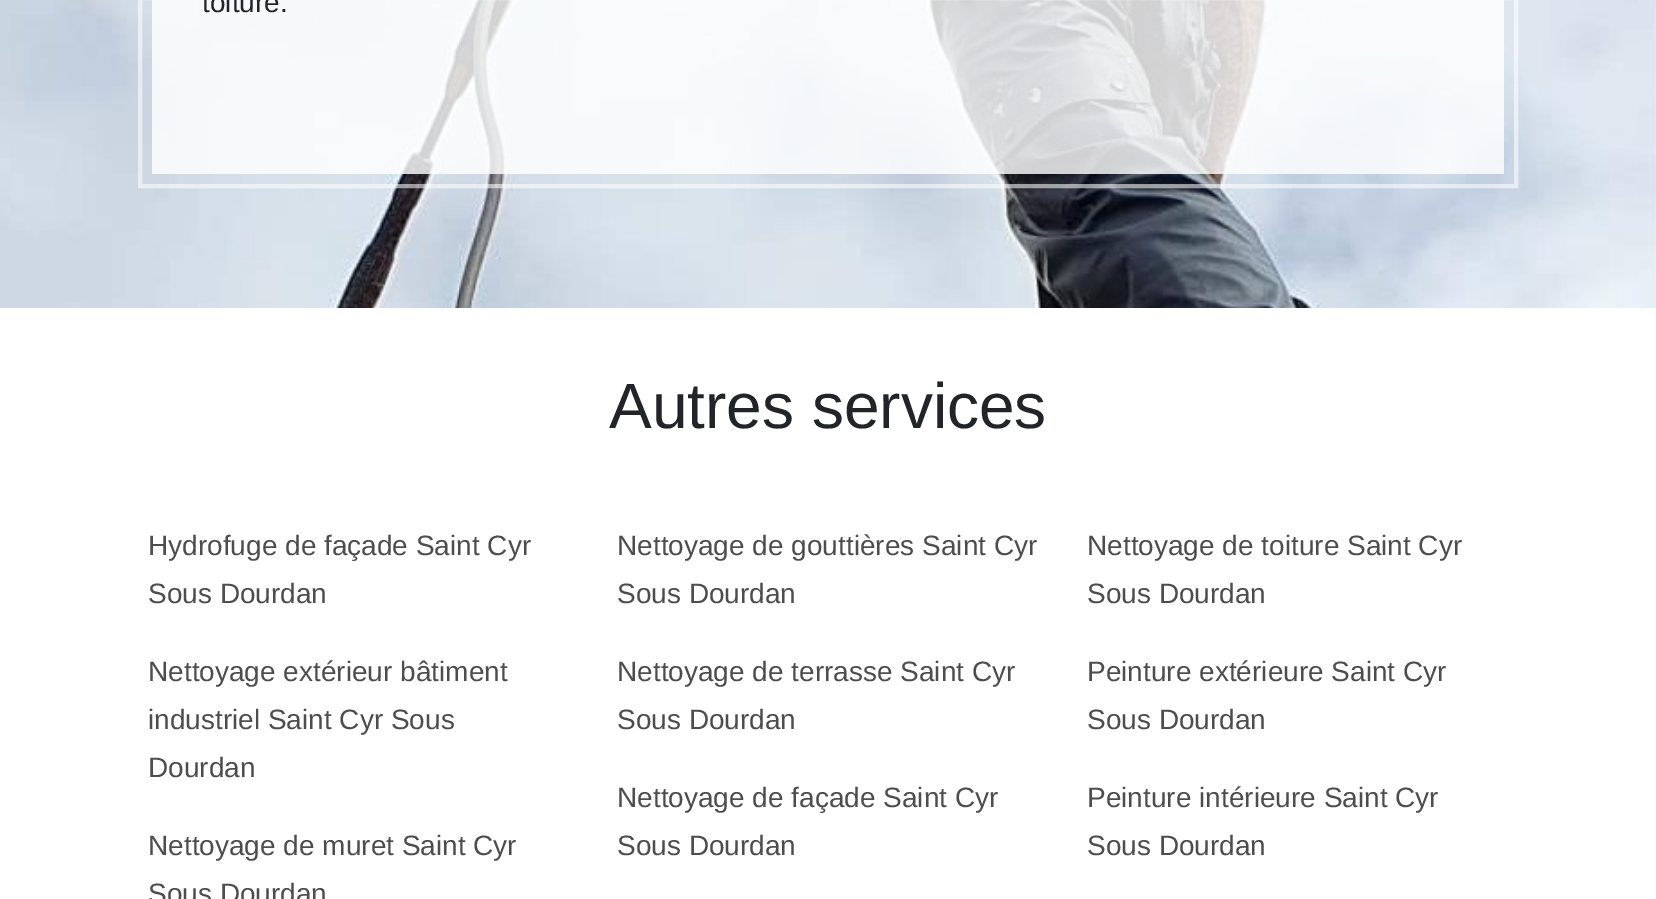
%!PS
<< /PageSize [1656 899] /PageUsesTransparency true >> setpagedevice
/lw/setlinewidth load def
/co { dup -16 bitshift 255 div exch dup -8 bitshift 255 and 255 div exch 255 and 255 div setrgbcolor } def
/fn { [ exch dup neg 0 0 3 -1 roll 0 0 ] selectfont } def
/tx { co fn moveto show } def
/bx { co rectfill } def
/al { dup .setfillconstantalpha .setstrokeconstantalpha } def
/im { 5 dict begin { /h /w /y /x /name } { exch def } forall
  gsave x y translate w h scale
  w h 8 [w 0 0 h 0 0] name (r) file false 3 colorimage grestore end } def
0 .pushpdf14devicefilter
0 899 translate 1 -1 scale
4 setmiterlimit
0 0 1656 899 16#FFFFFF bx
(media/1.raw) 0 0 1656 308 im
0.56 al
4 lw
140 -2 1376 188 rectstroke
0.81 al
152 0 1352 174 16#FFFFFF bx
1 al
(toiture.) 202 12 /LiberationSans-Regular 28 16#212529 tx
(Autres services) 609 428 /LiberationSans-Regular 64 16#212529 tx
(Hydrofuge de façade Saint Cyr) 148 555 /LiberationSans-Regular 28 16#4E4D4D tx
(Sous Dourdan) 148 603 /LiberationSans-Regular 28 16#4E4D4D tx
(Nettoyage de gouttières Saint Cyr) 617 555 /LiberationSans-Regular 28 16#4E4D4D tx
(Sous Dourdan) 617 603 /LiberationSans-Regular 28 16#4E4D4D tx
(Nettoyage de toiture Saint Cyr) 1087 555 /LiberationSans-Regular 28 16#4E4D4D tx
(Sous Dourdan) 1087 603 /LiberationSans-Regular 28 16#4E4D4D tx
(Nettoyage extérieur bâtiment) 148 681 /LiberationSans-Regular 28 16#4E4D4D tx
(industriel Saint Cyr Sous) 148 729 /LiberationSans-Regular 28 16#4E4D4D tx
(Dourdan) 148 777 /LiberationSans-Regular 28 16#4E4D4D tx
(Nettoyage de terrasse Saint Cyr) 617 681 /LiberationSans-Regular 28 16#4E4D4D tx
(Sous Dourdan) 617 729 /LiberationSans-Regular 28 16#4E4D4D tx
(Peinture extérieure Saint Cyr) 1087 681 /LiberationSans-Regular 28 16#4E4D4D tx
(Sous Dourdan) 1087 729 /LiberationSans-Regular 28 16#4E4D4D tx
(Nettoyage de façade Saint Cyr) 617 807 /LiberationSans-Regular 28 16#4E4D4D tx
(Sous Dourdan) 617 855 /LiberationSans-Regular 28 16#4E4D4D tx
(Peinture intérieure Saint Cyr) 1087 807 /LiberationSans-Regular 28 16#4E4D4D tx
(Sous Dourdan) 1087 855 /LiberationSans-Regular 28 16#4E4D4D tx
(Nettoyage de muret Saint Cyr) 148 855 /LiberationSans-Regular 28 16#4E4D4D tx
(Sous Dourdan) 148 903 /LiberationSans-Regular 28 16#4E4D4D tx
.poppdf14devicefilter showpage
